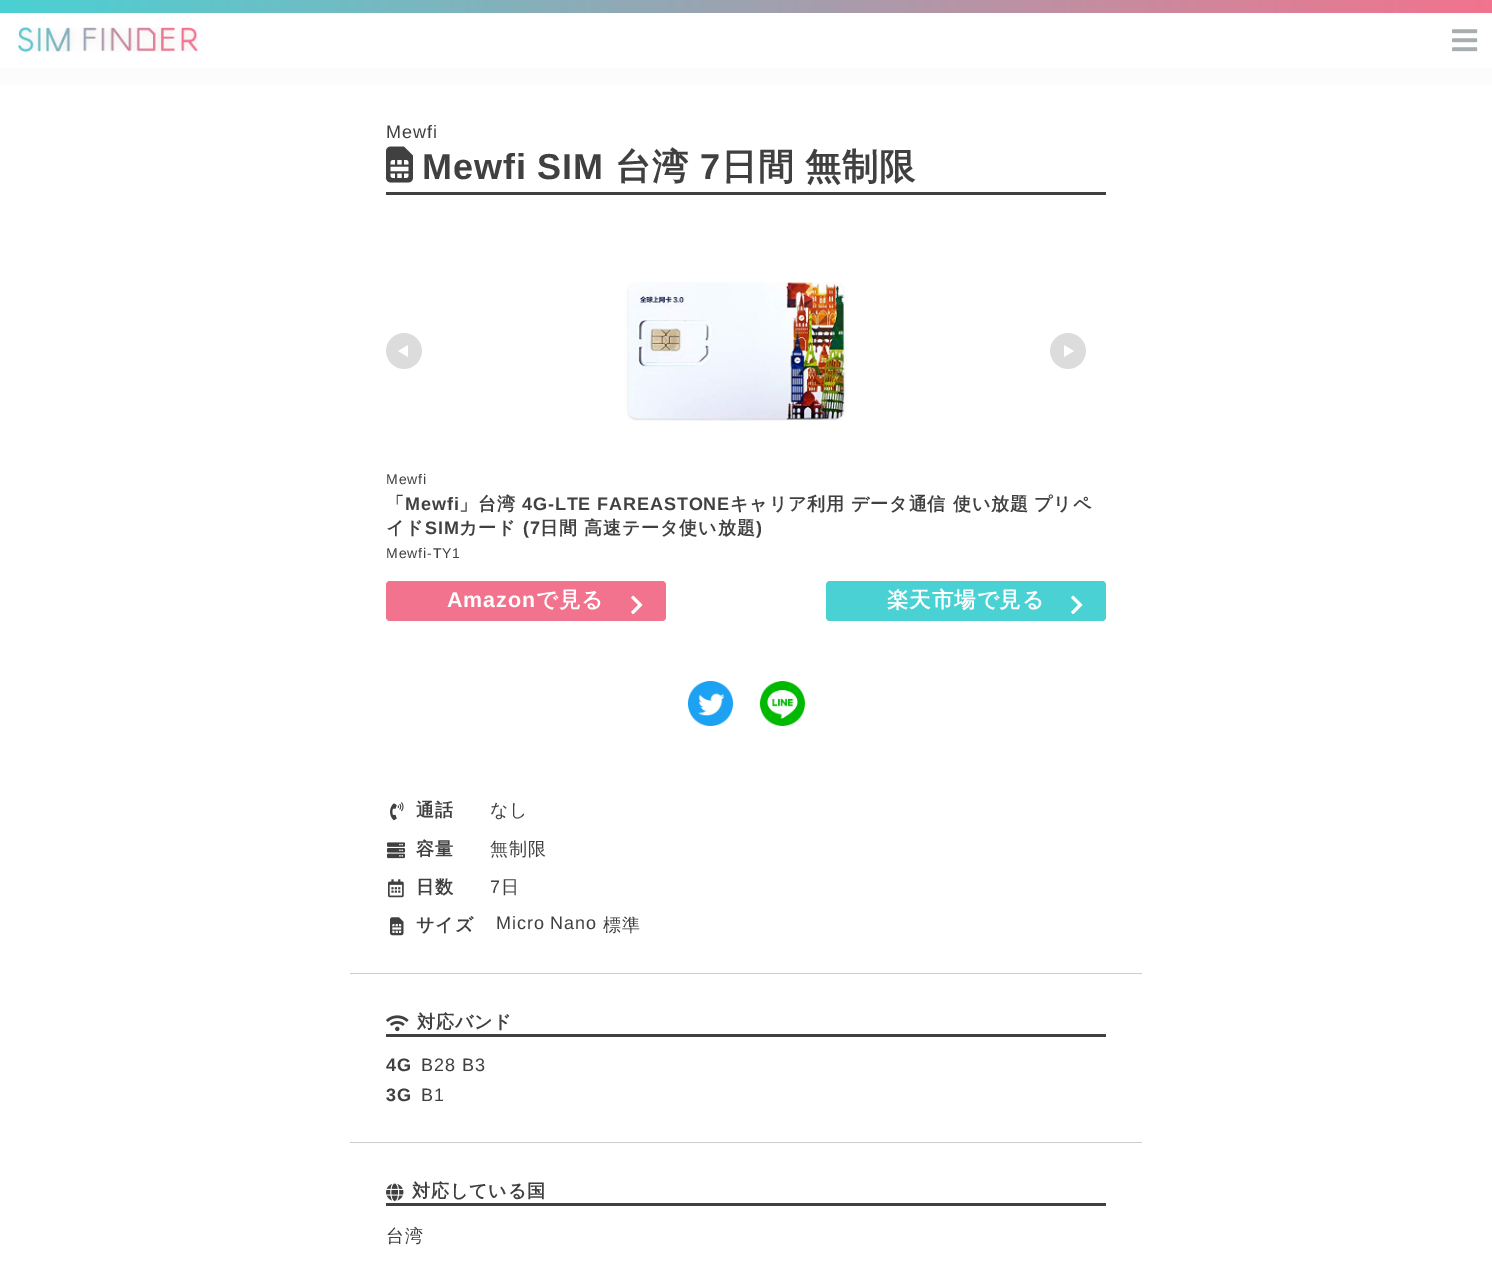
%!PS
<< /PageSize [1492 1280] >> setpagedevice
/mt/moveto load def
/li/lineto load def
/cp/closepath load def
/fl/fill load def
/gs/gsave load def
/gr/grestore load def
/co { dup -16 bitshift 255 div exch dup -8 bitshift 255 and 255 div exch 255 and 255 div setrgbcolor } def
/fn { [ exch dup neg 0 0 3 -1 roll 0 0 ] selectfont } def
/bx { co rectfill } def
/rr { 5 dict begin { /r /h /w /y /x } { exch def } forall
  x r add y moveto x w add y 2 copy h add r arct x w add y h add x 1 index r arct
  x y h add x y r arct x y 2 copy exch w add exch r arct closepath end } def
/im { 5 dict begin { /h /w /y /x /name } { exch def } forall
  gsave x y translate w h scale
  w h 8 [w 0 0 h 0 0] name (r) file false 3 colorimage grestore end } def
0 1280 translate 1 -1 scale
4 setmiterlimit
0 0 1492 1280 16#FCFCFC bx
0 13 1492 55 16#FFFFFF bx
gs 0 0 mt 1492 0 li 1492 13 li 0 13 li cp clip newpath
<< /ShadingType 2 /ColorSpace /DeviceRGB /Coords [0 6.5 1492 6.5] /Extend [true true] /Function << /FunctionType 2 /Domain [0 1] /C0 [.29 .82 .827] /C1 [.949 .451 .557] /N 1 >> >> shfill gr
(media/1.raw) 18 27 180 25 im
(media/2.raw) 1452 29 26 23 im
0 86 1492 1194 16#FFFFFF bx
386 192 720 3 16#404040 bx
(media/3.raw) 386 146 27 37 im
(media/4.raw) 386 333 36 36 im
(media/5.raw) 624 282 223 139 im
(media/6.raw) 1050 333 36 36 im
16#F2738E co
386 581 280 40 4 rr fl
(media/7.raw) 631 595 12 20 im
16#4AD1D3 co
826 581 280 40 4 rr fl
(media/8.raw) 1071 595 12 20 im
(media/9.raw) 688 681 45 45 im
(media/10.raw) 760 681 45 45 im
350 973 792 1 16#CCCCCC bx
(media/11.raw) 390 802 14 19 im
(media/12.raw) 387 842 18 17 im
(media/13.raw) 388 879 16 19 im
(media/14.raw) 390 917 14 19 im
350 1142 792 1 16#CCCCCC bx
386 1034 720 3 16#404040 bx
(media/15.raw) 386 1015 23 17 im
386 1203 720 3 16#404040 bx
(media/16.raw) 386 1183 18 18 im
/LiberationSans-Regular 18 fn
386 138 mt .9 0 (Mewfi) ashow
/LiberationSans-Bold 36 fn
422 179 mt .9 0 (Mewfi SIM) ashow
/WenQuanYiZenHei-Bold 36 fn
615 179 mt .9 0 (台湾) ashow
/LiberationSans-Bold 36 fn
700 179 mt .9 0 (7) ashow
/WenQuanYiZenHei-Bold 36 fn
721 179 mt .9 0 (日間) ashow
805 179 mt .9 0 (無制限) ashow
/LiberationSans-Regular 14 fn
386 484 mt .9 0 (Mewfi) ashow
/WenQuanYiZenHei-Bold 18 fn
386 510 mt .9 0 (「) ashow
/LiberationSans-Bold 18 fn
405 510 mt .9 0 (Mewfi) ashow
/WenQuanYiZenHei-Bold 18 fn
459 510 mt .9 0 (」台湾) ashow
/LiberationSans-Bold 18 fn
522 510 mt .9 0 (4G-LTE FAREASTONE) ashow
/WenQuanYiZenHei-Bold 18 fn
730 510 mt .9 0 (キャリア利用) ashow
851 510 mt .9 0 (データ通信) ashow
953 510 mt .9 0 (使い放題) ashow
1034 510 mt .9 0 (プリペ) ashow
386 534 mt .9 0 (イド) ashow
/LiberationSans-Bold 18 fn
425 534 mt .9 0 (SIM) ashow
/WenQuanYiZenHei-Bold 18 fn
459 534 mt .9 0 (カード) ashow
/LiberationSans-Bold 18 fn
523 534 mt .9 0 (\(7) ashow
/WenQuanYiZenHei-Bold 18 fn
540 534 mt .9 0 (日間 高速テータ使い放題) ashow
/LiberationSans-Bold 18 fn
756 534 mt .9 0 (\)) ashow
/LiberationSans-Regular 14 fn
386 558 mt .9 0 (Mewfi-TY1) ashow
/LiberationSans-Bold 21.5 fn
16#FFFFFF co
447 607 mt .9 0 (Amazon) ashow
/WenQuanYiZenHei-Bold 21.5 fn
536 607 mt .9 0 (で見る) ashow
887 607 mt .9 0 (楽天市場で見る) ashow
/WenQuanYiZenHei-Bold 18 fn
16#404040 co
416 816 mt .9 0 (通話) ashow
/WenQuanYiZenHei-Medium 18 fn
490 816 mt .9 0 (なし) ashow
/WenQuanYiZenHei-Bold 18 fn
416 855 mt .9 0 (容量) ashow
/WenQuanYiZenHei-Medium 18 fn
490 855 mt .9 0 (無制限) ashow
/WenQuanYiZenHei-Bold 18 fn
416 893 mt .9 0 (日数) ashow
/LiberationSans-Regular 18 fn
490 893 mt .9 0 (7) ashow
/WenQuanYiZenHei-Medium 18 fn
501 893 mt .9 0 (日) ashow
/WenQuanYiZenHei-Bold 18 fn
416 931 mt .9 0 (サイズ) ashow
/LiberationSans-Regular 18 fn
496 929 mt .9 0 (Micro Nano) ashow
/WenQuanYiZenHei-Medium 18 fn
603 931 mt .9 0 (標準) ashow
/WenQuanYiZenHei-Bold 18 fn
417 1028 mt .9 0 (対応バンド) ashow
/LiberationSans-Bold 18 fn
386 1071 mt .9 0 (4G) ashow
/LiberationSans-Regular 18 fn
421 1071 mt .9 0 (B28 B3) ashow
/LiberationSans-Bold 18 fn
386 1101 mt .9 0 (3G) ashow
/LiberationSans-Regular 18 fn
421 1101 mt .9 0 (B1) ashow
/WenQuanYiZenHei-Bold 18 fn
412 1197 mt .9 0 (対応している国) ashow
/WenQuanYiZenHei-Medium 18 fn
386 1242 mt .9 0 (台湾) ashow
showpage
